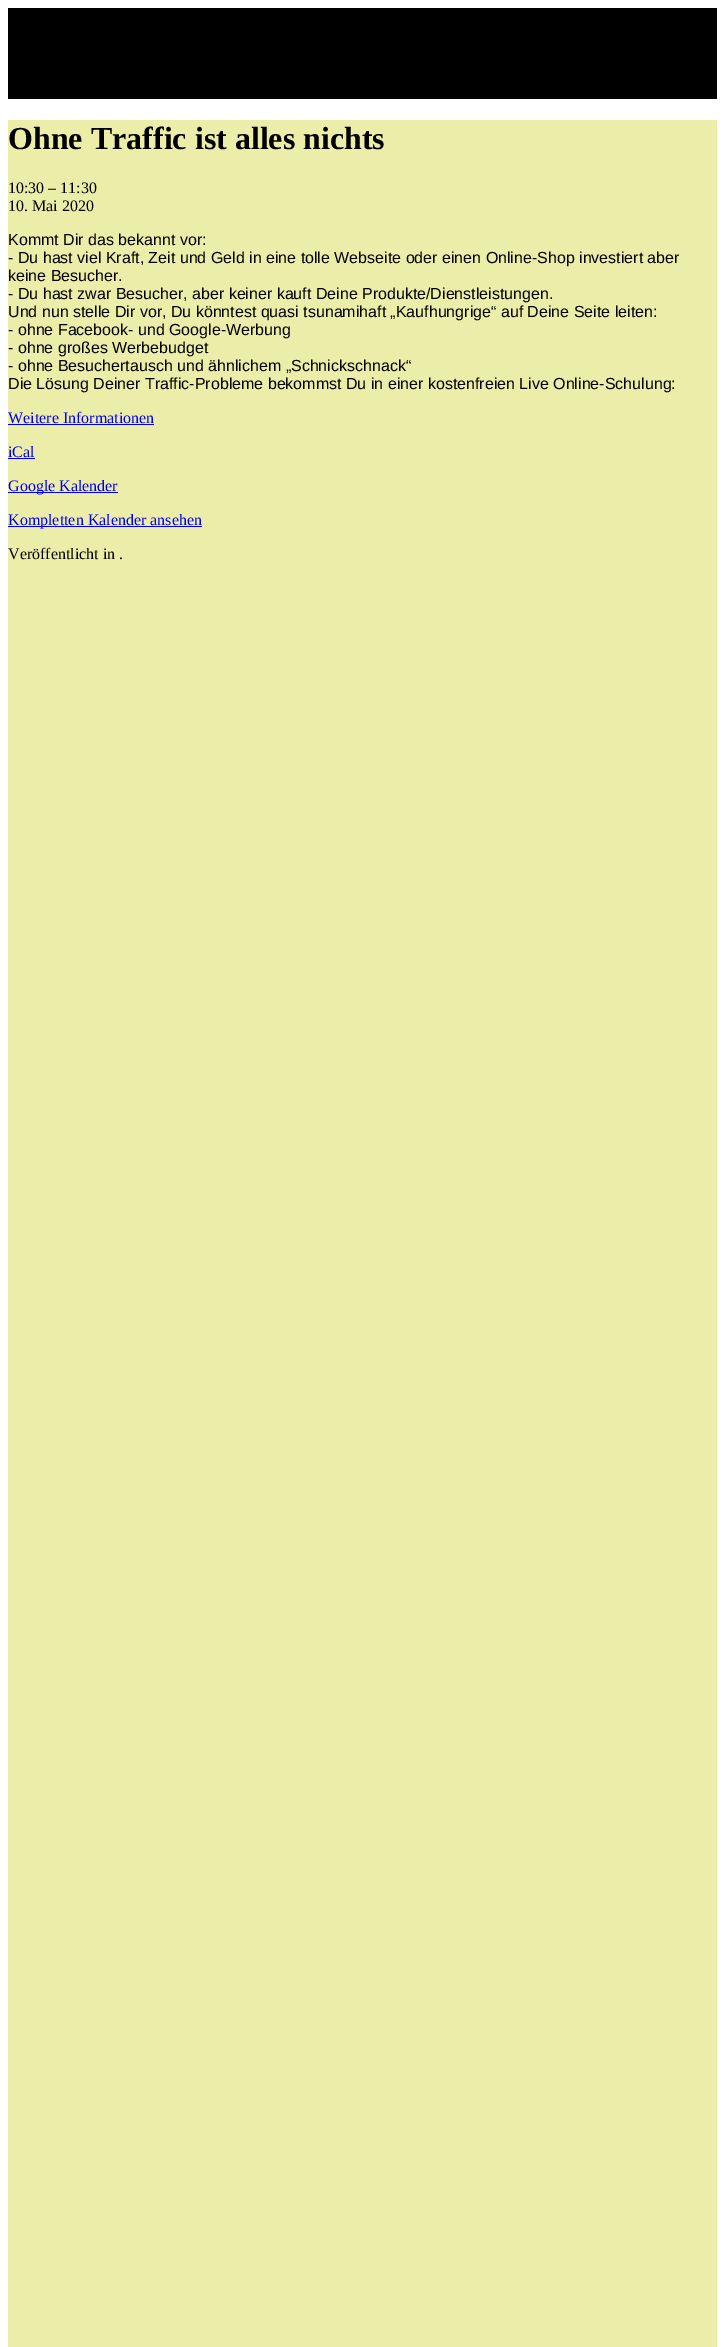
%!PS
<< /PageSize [725 2347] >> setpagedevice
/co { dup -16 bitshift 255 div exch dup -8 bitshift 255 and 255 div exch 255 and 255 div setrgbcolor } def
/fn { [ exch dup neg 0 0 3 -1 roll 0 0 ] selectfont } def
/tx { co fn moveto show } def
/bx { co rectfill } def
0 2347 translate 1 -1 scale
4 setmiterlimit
0 0 725 2347 16#FFFFFF bx
8 8 709 91 16#000000 bx
8 120 709 2227 16#EDEDAA bx
8 424 146 1 16#0000EE bx
8 458 27 1 16#0000EE bx
8 492 110 1 16#0000EE bx
8 526 194 1 16#0000EE bx
(Ohne Traffic ist alles nichts) 8 149 /LiberationSerif-Bold 32 16#000000 tx
(10:30 – 11:30) 8 193 /LiberationSerif-Regular 16 16#000000 tx
(10. Mai 2020) 8 211 /LiberationSerif-Regular 16 16#000000 tx
(Kommt Dir das bekannt vor:) 8 245 /LiberationSans-Regular 16 16#000000 tx
(- Du hast viel Kraft, Zeit und Geld in eine tolle Webseite oder einen Online-Shop investiert aber) 8 263 /LiberationSans-Regular 16 16#000000 tx
(keine Besucher.) 8 281 /LiberationSans-Regular 16 16#000000 tx
(- Du hast zwar Besucher, aber keiner kauft Deine Produkte/Dienstleistungen.) 8 299 /LiberationSans-Regular 16 16#000000 tx
(Und nun stelle Dir vor, Du könntest quasi tsunamihaft „Kaufhungrige“ auf Deine Seite leiten:) 8 317 /LiberationSans-Regular 16 16#000000 tx
(- ohne Facebook- und Google-Werbung) 8 335 /LiberationSans-Regular 16 16#000000 tx
(- ohne großes Werbebudget) 8 353 /LiberationSans-Regular 16 16#000000 tx
(- ohne Besuchertausch und ähnlichem „Schnickschnack“) 8 371 /LiberationSans-Regular 16 16#000000 tx
(Die Lösung Deiner Traffic-Probleme bekommst Du in einer kostenfreien Live Online-Schulung:) 8 389 /LiberationSans-Regular 16 16#000000 tx
(Weitere Informationen) 8 423 /LiberationSerif-Regular 16 16#0000EE tx
(iCal) 8 457 /LiberationSerif-Regular 16 16#0000EE tx
(Google Kalender) 8 491 /LiberationSerif-Regular 16 16#0000EE tx
(Kompletten Kalender ansehen) 8 525 /LiberationSerif-Regular 16 16#0000EE tx
(Veröffentlicht in .) 8 559 /LiberationSerif-Regular 16 16#000000 tx
showpage
